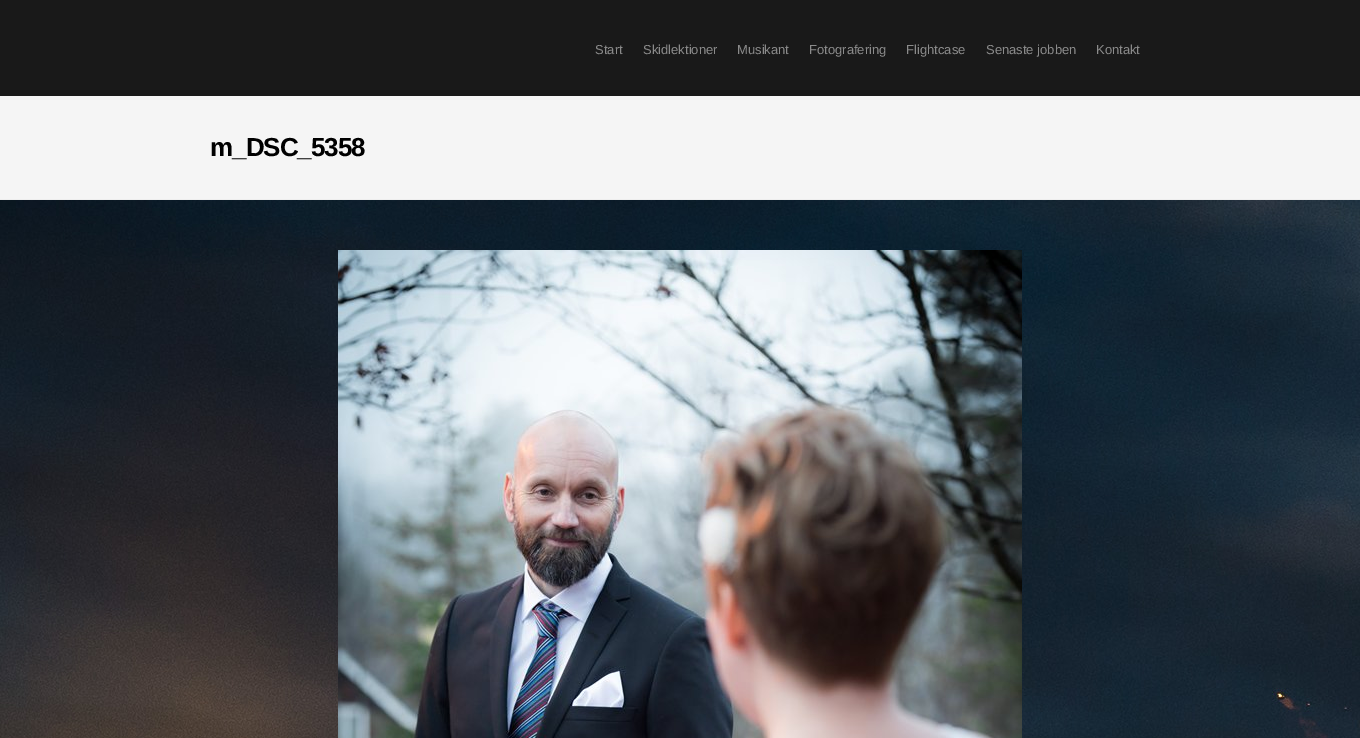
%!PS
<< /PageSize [1360 738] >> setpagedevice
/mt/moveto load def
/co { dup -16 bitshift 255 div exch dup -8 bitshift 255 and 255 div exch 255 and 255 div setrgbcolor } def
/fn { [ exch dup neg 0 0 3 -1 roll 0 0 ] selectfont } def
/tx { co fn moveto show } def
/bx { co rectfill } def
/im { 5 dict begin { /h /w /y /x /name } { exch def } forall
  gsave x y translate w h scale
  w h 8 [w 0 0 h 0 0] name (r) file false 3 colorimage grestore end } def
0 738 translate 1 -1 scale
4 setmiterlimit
0 0 1360 738 16#FFFFFF bx
(media/1.raw) 0 200 1360 538 im
0 0 1360 96 16#191919 bx
0 96 1360 103 16#F5F5F5 bx
0 199 1360 1 16#EEEEEE bx
(media/2.raw) 338 250 684 488 im
(Start) 595 54 /LiberationSans-Regular 13 16#8B8B8B tx
(Skidlektioner) 643 54 /LiberationSans-Regular 13 16#8B8B8B tx
(Musikant) 737 54 /LiberationSans-Regular 13 16#8B8B8B tx
(Fotografering) 809 54 /LiberationSans-Regular 13 16#8B8B8B tx
(Flightcase) 906 54 /LiberationSans-Regular 13 16#8B8B8B tx
(Senaste jobben) 986 54 /LiberationSans-Regular 13 16#8B8B8B tx
(Kontakt) 1096 54 /LiberationSans-Regular 13 16#8B8B8B tx
/LiberationSans-Bold 26 fn
16#000000 co
210 156 mt -1 0 (m_DSC_5358) ashow
showpage
